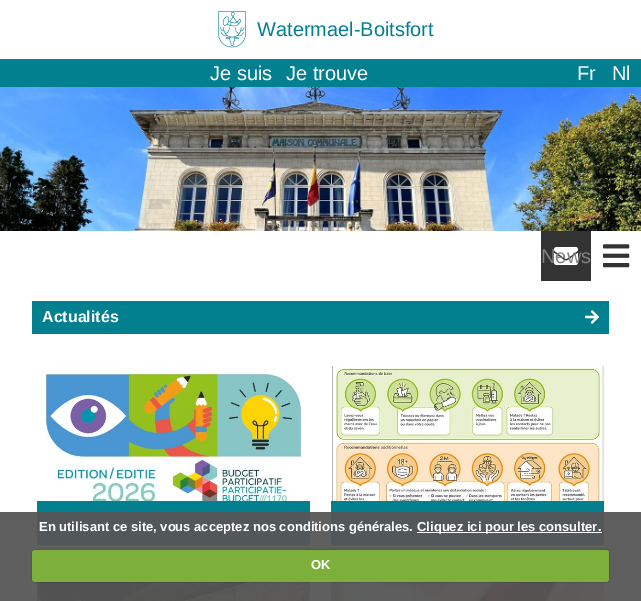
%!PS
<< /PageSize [641 601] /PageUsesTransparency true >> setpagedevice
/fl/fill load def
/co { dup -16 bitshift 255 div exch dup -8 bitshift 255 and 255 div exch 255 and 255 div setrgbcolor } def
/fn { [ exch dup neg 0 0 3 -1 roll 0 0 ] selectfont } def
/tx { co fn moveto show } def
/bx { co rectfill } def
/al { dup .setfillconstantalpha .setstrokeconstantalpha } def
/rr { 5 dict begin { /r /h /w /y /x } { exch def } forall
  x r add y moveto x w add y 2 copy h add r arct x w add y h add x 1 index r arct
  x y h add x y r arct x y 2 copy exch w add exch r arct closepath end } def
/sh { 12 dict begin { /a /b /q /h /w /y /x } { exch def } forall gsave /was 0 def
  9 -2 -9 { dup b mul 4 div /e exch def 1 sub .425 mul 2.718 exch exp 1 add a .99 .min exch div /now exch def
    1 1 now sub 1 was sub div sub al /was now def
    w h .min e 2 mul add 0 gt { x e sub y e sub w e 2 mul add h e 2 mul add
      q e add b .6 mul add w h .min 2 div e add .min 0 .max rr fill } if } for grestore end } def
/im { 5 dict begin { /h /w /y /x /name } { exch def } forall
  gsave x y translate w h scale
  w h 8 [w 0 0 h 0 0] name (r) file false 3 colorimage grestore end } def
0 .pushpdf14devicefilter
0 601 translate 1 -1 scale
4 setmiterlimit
0 0 641 601 16#FFFFFF bx
(media/1.raw) 218 11 28 37 im
0 59 641 28 16#028090 bx
(media/2.raw) 0 87 641 144 im
541 231 50 50 16#333333 bx
(media/3.raw) 554 247 24 18 im
(media/4.raw) 603 244 27 24 im
32 301 577 33 16#028090 bx
(media/5.raw) 585 310 14 14 im
(media/6.raw) 45 366 259 135 im
37 501 273 44 16#028090 bx
(media/7.raw) 331 366 273 135 im
331 501 273 44 16#028090 bx
(media/8.raw) 37 582 273 19 im
(media/9.raw) 331 582 273 19 im
0.95 al
0 512 641 89 16#565656 bx
1 al
417 532 185 1 16#FFFFFF bx
16#000000 co
32 550 577 32 3 1 .25 sh
16#7DAF3B co
32 550 577 32 3 rr fl
(Watermael-Boitsfort) 257 36 /LiberationSans-Regular 20 16#028090 tx
(Je suis) 210 80 /LiberationSans-Regular 20 16#FFFFFF tx
(Je trouve) 286 80 /LiberationSans-Regular 20 16#FFFFFF tx
(Fr) 577 80 /LiberationSans-Regular 20 16#FFFFFF tx
(Nl) 612 80 /LiberationSans-Regular 20 16#FFFFFF tx
(News) 541 263 /LiberationSans-Regular 20 16#828282 tx
(Actualités) 42 322 /LiberationSans-Bold 16 16#FFFFFF tx
(En utilisant ce site, vous acceptez nos conditions générales.) 39 531 /LiberationSans-Bold 13 16#FFFFFF tx
(Cliquez ici pour les consulter.) 417 531 /LiberationSans-Bold 13 16#FFFFFF tx
(OK) 311 569 /LiberationSans-Bold 13 16#FFFFFF tx
.poppdf14devicefilter showpage
